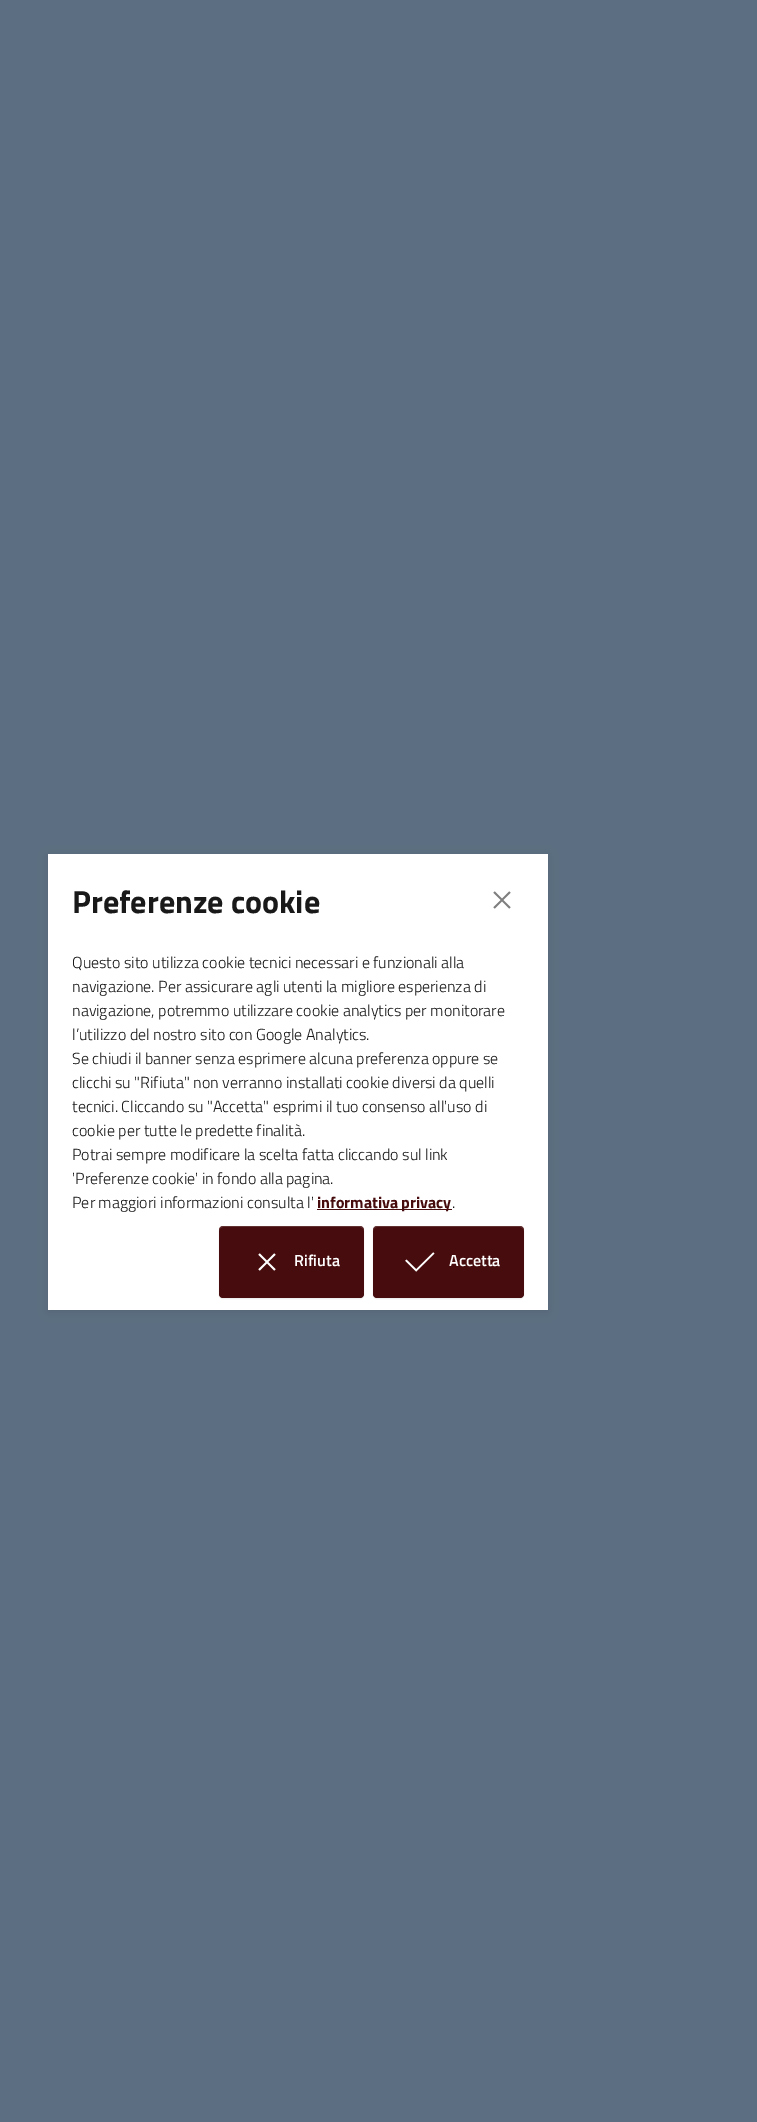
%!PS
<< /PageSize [757 2122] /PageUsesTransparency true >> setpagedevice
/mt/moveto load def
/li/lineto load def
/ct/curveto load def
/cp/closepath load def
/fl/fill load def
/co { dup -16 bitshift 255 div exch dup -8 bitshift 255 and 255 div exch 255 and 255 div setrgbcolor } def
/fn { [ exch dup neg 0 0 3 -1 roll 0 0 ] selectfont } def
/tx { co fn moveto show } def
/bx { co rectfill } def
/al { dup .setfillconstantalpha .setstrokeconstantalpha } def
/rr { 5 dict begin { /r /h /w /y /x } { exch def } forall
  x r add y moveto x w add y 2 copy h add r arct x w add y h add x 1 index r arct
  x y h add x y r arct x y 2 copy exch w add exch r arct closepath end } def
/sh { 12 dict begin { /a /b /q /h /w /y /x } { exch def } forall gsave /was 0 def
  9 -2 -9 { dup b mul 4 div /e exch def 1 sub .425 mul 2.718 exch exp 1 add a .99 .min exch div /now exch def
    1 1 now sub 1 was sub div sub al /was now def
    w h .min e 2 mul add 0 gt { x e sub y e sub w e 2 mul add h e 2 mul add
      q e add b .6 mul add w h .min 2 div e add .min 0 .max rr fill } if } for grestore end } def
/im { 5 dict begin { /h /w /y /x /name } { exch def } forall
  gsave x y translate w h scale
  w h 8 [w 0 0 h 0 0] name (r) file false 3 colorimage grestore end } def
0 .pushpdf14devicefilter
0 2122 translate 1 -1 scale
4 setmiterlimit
0 0 757 2122 16#5C6F82 bx
16#000000 co
48 856 500 456 0 5 .1 sh
48 854 500 456 16#FFFFFF bx
(media/1.raw) 493 891 18 18 im
317 1209 135 1 16#470D0E bx
16#000000 co
219 1227 145 72 4 .5 .07 sh
16#470D0E co
219 1226 145 72 4 rr fl
0.15 al
16#FFFFFF co
223 1227 mt 360 1227 li 362 1227 364 1229 364 1231 ct 364 1230 li 364 1228 362 1226 360 1226 ct 223 1226 li 221 1226 219 1228 219 1230 ct 219 1231 li 219 1229 221 1227 223 1227 ct cp fl
1 al
(media/2.raw) 258 1253 18 18 im
16#000000 co
373 1227 151 72 4 .5 .07 sh
16#470D0E co
373 1226 151 72 4 rr fl
0.15 al
16#FFFFFF co
377 1227 mt 520 1227 li 522 1227 524 1229 524 1231 ct 524 1230 li 524 1228 522 1226 520 1226 ct 377 1226 li 375 1226 373 1228 373 1230 ct 373 1231 li 373 1229 375 1227 377 1227 ct cp fl
1 al
(media/3.raw) 405 1252 30 20 im
(Preferenze cookie) 72 913 /TitilliumWeb-Bold 32 16#19191A tx
(Questo sito utilizza cookie tecnici necessari e funzionali alla) 72 968 /TitilliumWeb-Light 16 16#19191A tx
(navigazione. Per assicurare agli utenti la migliore esperienza di) 72 992 /TitilliumWeb-Light 16 16#19191A tx
(navigazione, potremmo utilizzare cookie analytics per monitorare) 72 1016 /TitilliumWeb-Light 16 16#19191A tx
(l’utilizzo del nostro sito con Google Analytics.) 72 1040 /TitilliumWeb-Light 16 16#19191A tx
(Se chiudi il banner senza esprimere alcuna preferenza oppure se) 72 1064 /TitilliumWeb-Light 16 16#19191A tx
(clicchi su "Rifiuta" non verranno installati cookie diversi da quelli) 72 1088 /TitilliumWeb-Light 16 16#19191A tx
(tecnici. Cliccando su "Accetta" esprimi il tuo consenso all'uso di) 72 1112 /TitilliumWeb-Light 16 16#19191A tx
(cookie per tutte le predette finalità.) 72 1136 /TitilliumWeb-Light 16 16#19191A tx
(Potrai sempre modificare la scelta fatta cliccando sul link) 72 1160 /TitilliumWeb-Light 16 16#19191A tx
('Preferenze cookie' in fondo alla pagina.) 72 1184 /TitilliumWeb-Light 16 16#19191A tx
(Per maggiori informazioni consulta l') 72 1208 /TitilliumWeb-Light 16 16#19191A tx
(informativa privacy) 317 1208 /TitilliumWeb-Bold 16 16#470D0E tx
(.) 452 1208 /TitilliumWeb-Light 16 16#19191A tx
(Rifiuta) 294 1266 /TitilliumWeb-SemiBold 16 16#FFFFFF tx
(Accetta) 449 1266 /TitilliumWeb-SemiBold 16 16#FFFFFF tx
.poppdf14devicefilter showpage
